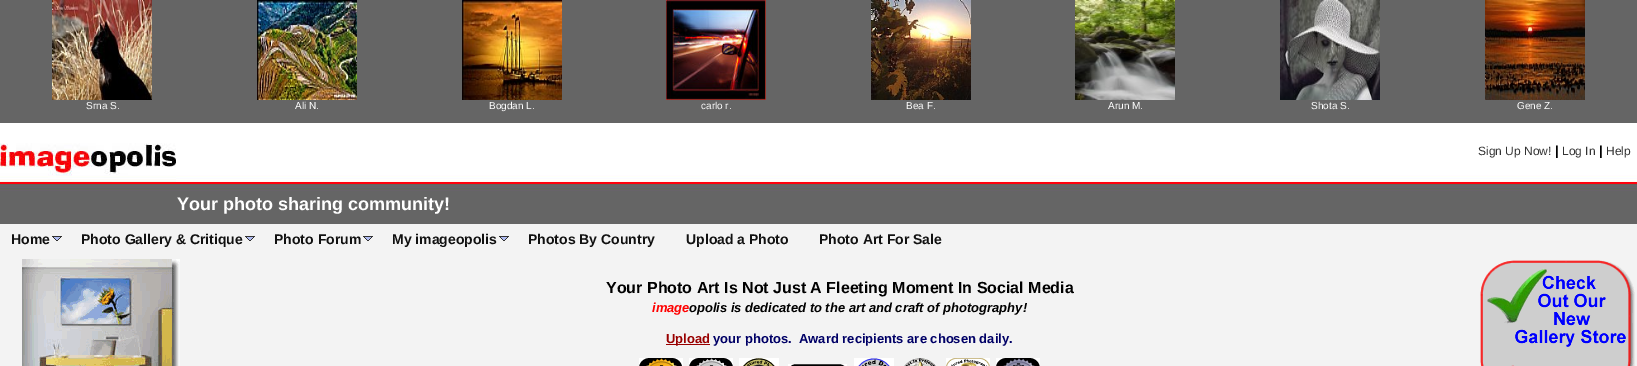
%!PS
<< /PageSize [1637 366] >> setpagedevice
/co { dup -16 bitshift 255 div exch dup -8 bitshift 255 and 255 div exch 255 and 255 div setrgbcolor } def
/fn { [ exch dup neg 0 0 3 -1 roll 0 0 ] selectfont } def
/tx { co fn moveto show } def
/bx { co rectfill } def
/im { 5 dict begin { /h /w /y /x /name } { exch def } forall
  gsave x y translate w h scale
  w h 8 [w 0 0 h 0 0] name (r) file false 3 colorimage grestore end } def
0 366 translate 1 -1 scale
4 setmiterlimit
0 0 1637 366 16#F3F3F3 bx
0 0 1637 123 16#656565 bx
(media/1.raw) 52 0 100 100 im
(media/2.raw) 257 0 100 100 im
(media/3.raw) 462 0 100 100 im
(media/4.raw) 666 0 100 100 im
(media/5.raw) 871 0 100 100 im
(media/6.raw) 1075 0 100 100 im
(media/7.raw) 1280 0 100 100 im
(media/8.raw) 1485 0 100 100 im
0 123 1637 20 16#FFFFFF bx
(media/9.raw) 176 143 1461 81 im
(media/10.raw) 0 143 176 81 im
52 236 10 1 16#313131 bx
54 237 6 1 16#AFBBF1 bx
60 237 1 1 16#313131 bx
53 237 1 1 16#313131 bx
55 238 4 1 16#AFBBF1 bx
59 238 1 1 16#313131 bx
54 238 1 1 16#313131 bx
56 239 2 1 16#AFBBF1 bx
58 239 1 1 16#313131 bx
55 239 1 1 16#313131 bx
56 240 2 1 16#313131 bx
245 236 10 1 16#313131 bx
247 237 6 1 16#AFBBF1 bx
253 237 1 1 16#313131 bx
246 237 1 1 16#313131 bx
248 238 4 1 16#AFBBF1 bx
252 238 1 1 16#313131 bx
247 238 1 1 16#313131 bx
249 239 2 1 16#AFBBF1 bx
251 239 1 1 16#313131 bx
248 239 1 1 16#313131 bx
249 240 2 1 16#313131 bx
363 236 10 1 16#313131 bx
365 237 6 1 16#AFBBF1 bx
371 237 1 1 16#313131 bx
364 237 1 1 16#313131 bx
366 238 4 1 16#AFBBF1 bx
370 238 1 1 16#313131 bx
365 238 1 1 16#313131 bx
367 239 2 1 16#AFBBF1 bx
369 239 1 1 16#313131 bx
366 239 1 1 16#313131 bx
367 240 2 1 16#313131 bx
499 236 10 1 16#313131 bx
501 237 6 1 16#AFBBF1 bx
507 237 1 1 16#313131 bx
500 237 1 1 16#313131 bx
502 238 4 1 16#AFBBF1 bx
506 238 1 1 16#313131 bx
501 238 1 1 16#313131 bx
503 239 2 1 16#AFBBF1 bx
505 239 1 1 16#313131 bx
502 239 1 1 16#313131 bx
503 240 2 1 16#313131 bx
(media/11.raw) 22 259 158 107 im
666 344 44 1 16#990000 bx
(media/12.raw) 639 358 44 8 im
(media/13.raw) 689 358 44 8 im
(media/14.raw) 739 358 40 8 im
(media/15.raw) 788 364 59 2 im
(media/16.raw) 854 358 40 8 im
(media/17.raw) 904 358 32 8 im
(media/18.raw) 946 358 44 8 im
(media/19.raw) 996 358 44 8 im
(media/20.raw) 1480 260 155 106 im
(Srna S.) 86 109 /LiberationSans-Regular 10 16#FFFFFF tx
(Ali N.) 295 109 /LiberationSans-Regular 10 16#FFFFFF tx
(Bogdan L.) 489 109 /LiberationSans-Regular 10 16#FFFFFF tx
(carlo r.) 701 109 /LiberationSans-Regular 10 16#FFFFFF tx
(Bea F.) 906 109 /LiberationSans-Regular 10 16#FFFFFF tx
(Arun M.) 1108 109 /LiberationSans-Regular 10 16#FFFFFF tx
(Shota S.) 1311 109 /LiberationSans-Regular 10 16#FFFFFF tx
(Gene Z.) 1517 109 /LiberationSans-Regular 10 16#FFFFFF tx
(Sign Up Now!) 1478 155 /LiberationSans-Regular 12 16#333333 tx
(|) 1555 155 /LiberationSans-Bold 13 16#000000 tx
(Log In) 1562 155 /LiberationSans-Regular 12 16#333333 tx
(|) 1599 155 /LiberationSans-Bold 13 16#000000 tx
(Help) 1606 155 /LiberationSans-Regular 12 16#333333 tx
(Your photo sharing community!) 177 210 /LiberationSans-Bold 18 16#FFFFFF tx
(Home) 11 244 /LiberationSans-Bold 14 16#111111 tx
(Photo Gallery & Critique) 81 244 /LiberationSans-Bold 14 16#111111 tx
(Photo Forum) 274 244 /LiberationSans-Bold 14 16#111111 tx
(My imageopolis) 392 244 /LiberationSans-Bold 14 16#111111 tx
(Photos By Country) 528 244 /LiberationSans-Bold 14 16#111111 tx
(Upload a Photo) 686 244 /LiberationSans-Bold 14 16#111111 tx
(Photo Art For Sale) 819 244 /LiberationSans-Bold 14 16#111111 tx
(Your Photo Art Is Not Just A Fleeting Moment In Social Media) 606 293 /LiberationSans-Bold 16 16#000000 tx
(image) 652 312 /LiberationSans-BoldItalic 13 16#FF0000 tx
(opolis is dedicated to the art and craft of photography!) 689 312 /LiberationSans-BoldItalic 13 16#000000 tx
(Upload) 666 343 /LiberationSans-Bold 13 16#990000 tx
(your photos.  Award recipients are chosen daily.) 713 343 /LiberationSans-Bold 13 16#000066 tx
showpage
